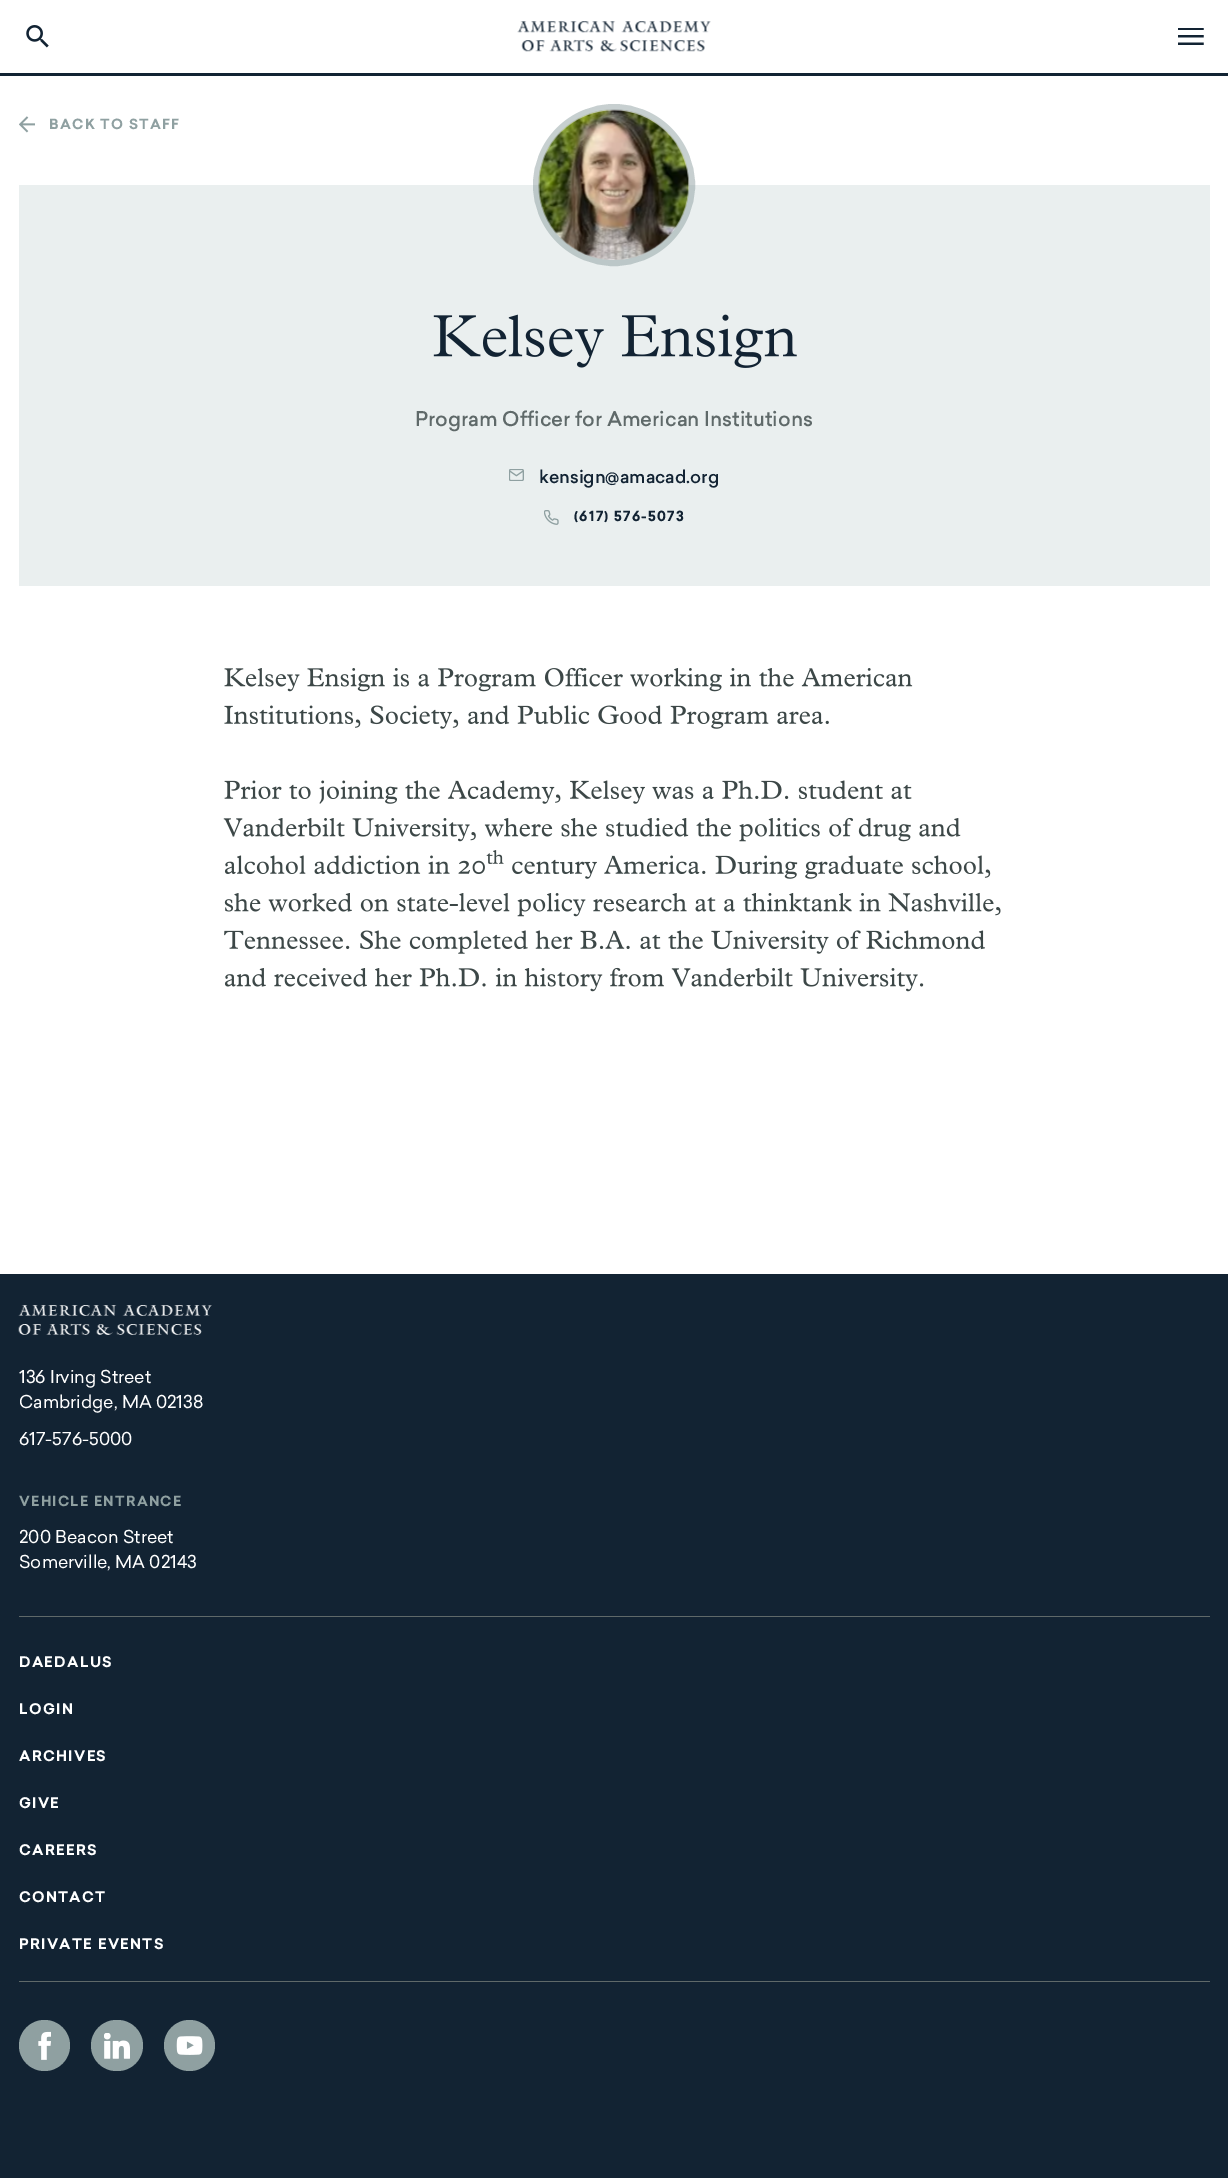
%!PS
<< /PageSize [1228 2178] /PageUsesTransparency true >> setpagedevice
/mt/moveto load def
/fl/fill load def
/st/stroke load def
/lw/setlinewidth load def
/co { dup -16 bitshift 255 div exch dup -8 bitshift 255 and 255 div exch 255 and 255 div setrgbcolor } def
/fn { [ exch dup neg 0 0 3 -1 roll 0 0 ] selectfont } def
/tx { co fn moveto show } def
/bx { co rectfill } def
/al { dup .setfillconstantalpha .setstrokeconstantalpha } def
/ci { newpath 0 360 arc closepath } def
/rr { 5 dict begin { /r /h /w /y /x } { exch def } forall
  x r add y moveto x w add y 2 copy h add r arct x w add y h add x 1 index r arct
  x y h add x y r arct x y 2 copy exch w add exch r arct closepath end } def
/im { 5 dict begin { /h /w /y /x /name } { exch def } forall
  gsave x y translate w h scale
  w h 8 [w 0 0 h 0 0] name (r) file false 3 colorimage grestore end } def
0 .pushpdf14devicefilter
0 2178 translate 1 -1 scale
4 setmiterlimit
0 0 1228 2178 16#122333 bx
0 0 1228 1274 16#FFFFFF bx
0 73 1228 3 16#122333 bx
(media/1.raw) 26 25 23 23 im
(media/2.raw) 517 21 194 31 im
(media/3.raw) 1178 28 26 17 im
(media/4.raw) 19 116 16 17 im
19 185 1191 401 16#EAEFEF bx
0.5 al
16#8FA0A1 co
6 lw
614 185 78 ci st
1 al
(media/5.raw) 538 109 152 151 im
(media/6.raw) 433 314 364 54 im
(media/7.raw) 509 469 15 12 im
(media/8.raw) 544 510 15 15 im
(media/9.raw) 224 667 689 25 im
(media/10.raw) 224 705 605 24 im
(media/11.raw) 224 780 688 24 im
(media/12.raw) 223 817 738 25 im
(media/13.raw) 224 855 261 20 im
(media/14.raw) 486 850 18 14 im
(media/15.raw) 512 855 479 24 im
(media/16.raw) 224 893 777 24 im
(media/17.raw) 224 930 761 24 im
(media/18.raw) 224 967 700 25 im
(media/19.raw) 18 1305 194 30 im
19 1616 1191 1 16#5F6969 bx
19 1981 1191 1 16#5F6969 bx
16#8FA0A1 co
44.5 2045.5 25.5 ci fl
(media/20.raw) 38 2031 13 29 im
91 2020 52 51 25.5 rr fl
(media/21.raw) 104 2033 26 26 im
189.5 2045.5 25.5 ci fl
(media/22.raw) 176 2036 27 19 im
/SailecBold-Regular 13.75 fn
49 129 mt 1.25 0 (BACK TO STAFF) ashow
(Program Officer for American Institutions) 415 426 /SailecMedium-Regular 20 16#5F6969 tx
(kensign@amacad.org) 539 483 /SailecMedium-Regular 17.5 16#122333 tx
/SailecBold-Regular 13.75 fn
574 521 mt 1.25 0 (\(617\) 576-5073) ashow
(136 Irving Street) 19 1383 /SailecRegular-Regular 17.5 16#FFFFFF tx
(Cambridge, MA 02138) 19 1408 /SailecRegular-Regular 17.5 16#FFFFFF tx
(617-576-5000) 19 1445 /SailecRegular-Regular 17.5 16#FFFFFF tx
/SailecBold-Regular 13.75 fn
16#8FA0A1 co
19 1506 mt 1.25 0 (VEHICLE ENTRANCE) ashow
(200 Beacon Street) 19 1543 /SailecRegular-Regular 17.5 16#FFFFFF tx
(Somerville, MA 02143) 19 1568 /SailecRegular-Regular 17.5 16#FFFFFF tx
/SailecBold-Regular 14.4 fn
19 1667 mt 1.25 0 (DAEDALUS) ashow
19 1714 mt 1.25 0 (LOGIN) ashow
19 1761 mt 1.25 0 (ARCHIVES) ashow
19 1808 mt 1.25 0 (GIVE) ashow
19 1855 mt 1.25 0 (CAREERS) ashow
19 1902 mt 1.25 0 (CONTACT) ashow
19 1949 mt 1.25 0 (PRIVATE EVENTS) ashow
.poppdf14devicefilter showpage
